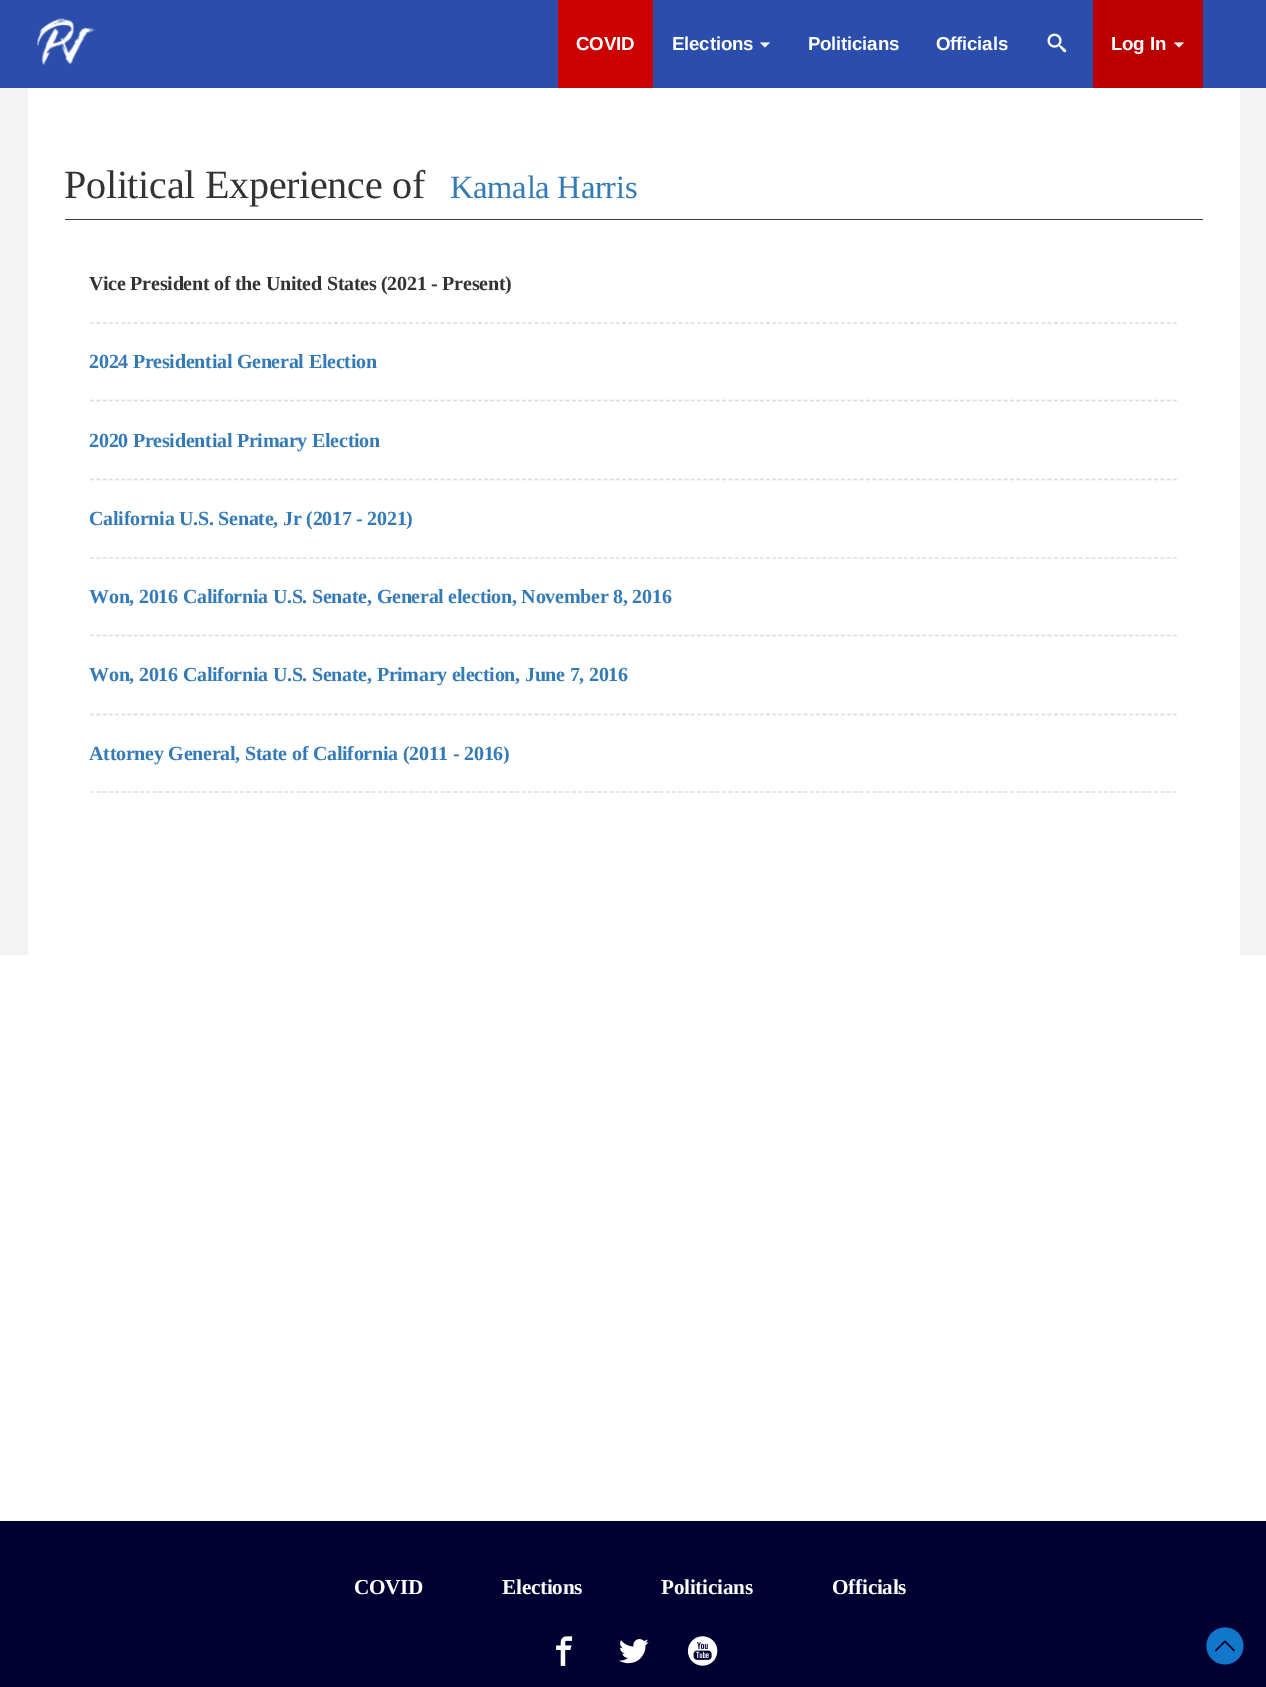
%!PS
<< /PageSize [1266 1687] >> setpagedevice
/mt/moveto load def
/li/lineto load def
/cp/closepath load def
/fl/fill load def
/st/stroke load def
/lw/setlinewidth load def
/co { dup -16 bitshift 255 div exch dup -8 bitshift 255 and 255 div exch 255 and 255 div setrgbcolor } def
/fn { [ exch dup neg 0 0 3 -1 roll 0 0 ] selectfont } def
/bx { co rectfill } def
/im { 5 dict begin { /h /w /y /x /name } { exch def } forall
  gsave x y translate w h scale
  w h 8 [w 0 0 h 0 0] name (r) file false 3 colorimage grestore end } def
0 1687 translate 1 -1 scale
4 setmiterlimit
0 0 1266 1687 16#FFFFFF bx
0 0 1266 88 16#2B4EAC bx
(media/1.raw) 37 18 58 47 im
558 0 95 88 16#CC0000 bx
16#FFFFFF co
760 42.5 mt 770 42.5 li 765 47.5 li cp fl
(media/2.raw) 1047 33 20 20 im
1093 0 110 88 16#BB0000 bx
16#FFFFFF co
1174 42.5 mt 1184 42.5 li 1179 47.5 li cp fl
0 88 1266 867 16#F3F3F3 bx
28 88 1212 867 16#FFFFFF bx
65 219 1138 1 16#3E3E3E bx
16#DDDDDD co
1.2 lw
[3.75 2.51] 0 setdash
90 323 mt 1177.5 323 li st
90 400.5 mt 1177.5 400.5 li st
90 479.5 mt 1177.5 479.5 li st
90 558 mt 1177.5 558 li st
90 635.5 mt 1177.5 635.5 li st
90 714.5 mt 1177.5 714.5 li st
90 792 mt 1177.5 792 li st
0 1521 1266 166 16#000033 bx
(media/3.raw) 556 1636 17 30 im
(media/4.raw) 619 1639 30 25 im
(media/5.raw) 687 1636 31 30 im
(media/6.raw) 1206 1627 38 38 im
/LiberationSans-Bold 18.75 fn
16#FFFFFF co
576 50 mt -.25 0 (COVID) ashow
672 50 mt -.25 0 (Elections) ashow
808 50 mt -.25 0 (Politicians) ashow
936 50 mt -.25 0 (Officials) ashow
1111 50 mt -.25 0 (Log In) ashow
/LiberationSerif-Regular 40 fn
16#333333 co
64 198 mt -.25 0 (Political Experience of) ashow
/LiberationSerif-Regular 32.5 fn
16#337AB7 co
450 198 mt -.25 0 (Kamala Harris) ashow
/LiberationSerif-Bold 20 fn
16#333333 co
89 290 mt -.25 0 (Vice President of the United States \(2021 - Present\)) ashow
16#337AB7 co
89 368 mt -.25 0 (2024 Presidential General Election) ashow
89 447 mt -.25 0 (2020 Presidential Primary Election) ashow
89 525 mt -.25 0 (California U.S. Senate, Jr \(2017 - 2021\)) ashow
89 603 mt -.25 0 (Won, 2016 California U.S. Senate, General election, November 8, 2016) ashow
89 681 mt -.25 0 (Won, 2016 California U.S. Senate, Primary election, June 7, 2016) ashow
89 760 mt -.25 0 (Attorney General, State of California \(2011 - 2016\)) ashow
/LiberationSerif-Bold 21.25 fn
16#FFFFFF co
354 1594 mt -.25 0 (COVID) ashow
502 1594 mt -.25 0 (Elections) ashow
661 1594 mt -.25 0 (Politicians) ashow
832 1594 mt -.25 0 (Officials) ashow
showpage
